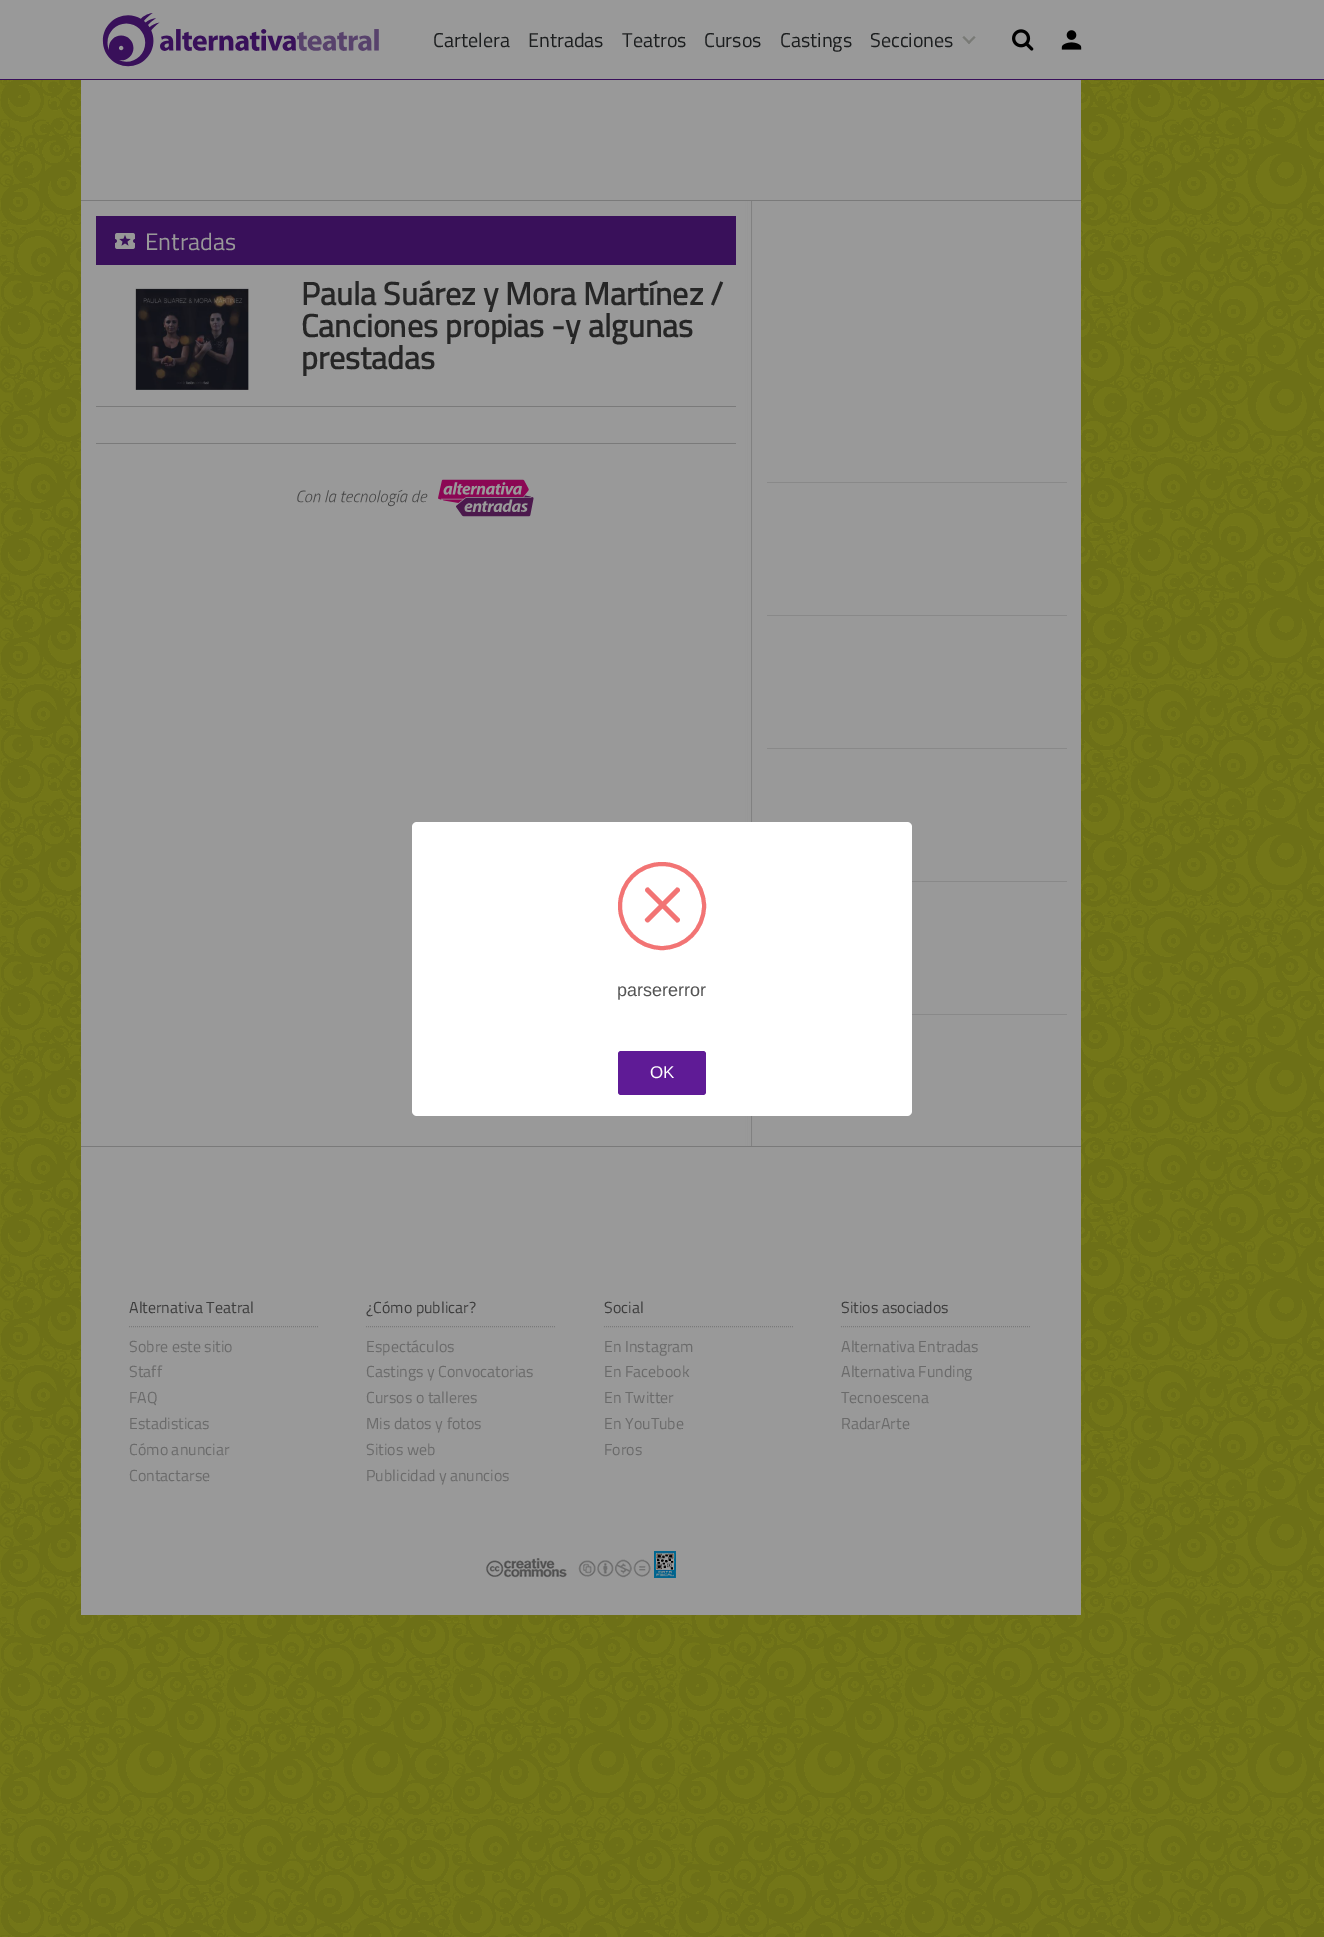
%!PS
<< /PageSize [1324 1937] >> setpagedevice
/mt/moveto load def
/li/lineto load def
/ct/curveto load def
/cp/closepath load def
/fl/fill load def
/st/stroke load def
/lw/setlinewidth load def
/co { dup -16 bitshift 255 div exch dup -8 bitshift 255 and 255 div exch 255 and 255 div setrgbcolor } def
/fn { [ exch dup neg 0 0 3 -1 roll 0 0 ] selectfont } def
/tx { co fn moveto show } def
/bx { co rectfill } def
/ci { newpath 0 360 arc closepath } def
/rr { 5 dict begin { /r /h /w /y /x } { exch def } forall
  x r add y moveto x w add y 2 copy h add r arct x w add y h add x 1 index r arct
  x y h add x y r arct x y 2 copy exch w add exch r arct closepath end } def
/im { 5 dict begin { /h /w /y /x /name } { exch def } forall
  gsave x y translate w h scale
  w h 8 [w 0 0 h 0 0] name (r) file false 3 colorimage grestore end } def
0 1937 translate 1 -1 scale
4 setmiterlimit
0 0 1324 1937 16#FFFFFF bx
(media/1.raw) 0 80 1324 1857 im
0 0 1324 79 16#999999 bx
0 79 1324 1 16#39105A bx
(media/2.raw) 102 13 277 54 im
16#797A76 co
964 36 mt 970.5 42.5 li 969 44 li 962.5 37.5 li cp fl
967.5 42.5 mt 974 36 li 975.5 37.5 li 969 44 li cp fl
(media/3.raw) 1012 29 22 22 im
(media/4.raw) 1061 30 21 20 im
(media/5.raw) 81 201 1000 945 im
81 80 1000 120 16#999999 bx
81 200 1000 1 16#7A7A7A bx
96 406 640 1 16#7A7A7A bx
96 216 640 49 16#39105A bx
(media/6.raw) 115 233 20 16 im
(media/7.raw) 135 287 114 103 im
96 443 640 1 16#7A7A7A bx
(media/8.raw) 297 479 237 38 im
767 482 300 1 16#898989 bx
767 615 300 1 16#898989 bx
767 748 300 1 16#898989 bx
912 881 155 1 16#898989 bx
912 1014 155 1 16#898989 bx
81 1147 1000 468 16#999999 bx
81 1146 1000 1 16#7A7A7A bx
[1 1] 0 setdash
129 1326.5 mt 319 1326.5 li st
366 1326.5 mt 556 1326.5 li st
604 1326.5 mt 794 1326.5 li st
841 1326.5 mt 1031 1326.5 li st
(media/9.raw) 486 1558 165 20 im
(media/10.raw) 654 1551 22 27 im
16#FFFFFF co
412 822 500 294 5 rr fl
16#F27474 co
4 lw
[] 0 setdash
662 906 42 ci st
649 888 mt 679.5 918.5 li 681 920.5 678.5 923 676.5 922.5 ct 645.5 891.5 li 645 890 li 645.5 888 647.5 886.5 649 888 ct cp fl
645.5 918.5 mt 676.5 887.5 li 678.5 887 681 889.5 679.5 891.5 ct 649 922 li 647.5 922.5 li 645.5 922 644 920 645.5 918.5 ct cp fl
16#5F1B96 co
618 1051 88 44 3 rr fl
(Cartelera) 433 47 /TitilliumWeb-Regular 20 16#1C1E1F tx
(Entradas) 528 47 /TitilliumWeb-Regular 20 16#1C1E1F tx
(Teatros) 622 47 /TitilliumWeb-Regular 20 16#1C1E1F tx
(Cursos) 704 47 /TitilliumWeb-Regular 20 16#1C1E1F tx
(Castings) 780 47 /TitilliumWeb-Regular 20 16#1C1E1F tx
(Secciones) 870 47 /TitilliumWeb-Regular 20 16#1C1E1F tx
(Entradas) 145 250 /TitilliumWeb-Regular 24 16#999999 tx
(Paula Suárez y Mora Martínez /) 301 305 /TitilliumWeb-Bold 32 16#262626 tx
(Canciones propias -y algunas) 301 337 /TitilliumWeb-Bold 32 16#262626 tx
(prestadas) 301 369 /TitilliumWeb-Bold 32 16#262626 tx
(Alternativa Teatral) 129 1313 /TitilliumWeb-Regular 16 16#3D3D3D tx
(Sobre este sitio) 129 1352 /TitilliumWeb-Regular 16 16#6B6B6B tx
(Staff) 129 1377 /TitilliumWeb-Regular 16 16#6B6B6B tx
(FAQ) 129 1403 /TitilliumWeb-Regular 16 16#6B6B6B tx
(Estadisticas) 129 1429 /TitilliumWeb-Regular 16 16#6B6B6B tx
(Cómo anunciar) 129 1455 /TitilliumWeb-Regular 16 16#6B6B6B tx
(Contactarse) 129 1481 /TitilliumWeb-Regular 16 16#6B6B6B tx
(¿Cómo publicar?) 366 1313 /TitilliumWeb-Regular 16 16#3D3D3D tx
(Espectáculos) 366 1352 /TitilliumWeb-Regular 16 16#6B6B6B tx
(Castings y Convocatorias) 366 1377 /TitilliumWeb-Regular 16 16#6B6B6B tx
(Cursos o talleres) 366 1403 /TitilliumWeb-Regular 16 16#6B6B6B tx
(Mis datos y fotos) 366 1429 /TitilliumWeb-Regular 16 16#6B6B6B tx
(Sitios web) 366 1455 /TitilliumWeb-Regular 16 16#6B6B6B tx
(Publicidad y anuncios) 366 1481 /TitilliumWeb-Regular 16 16#6B6B6B tx
(Social) 604 1313 /TitilliumWeb-Regular 16 16#3D3D3D tx
(En Instagram) 604 1352 /TitilliumWeb-Regular 16 16#6B6B6B tx
(En Facebook) 604 1377 /TitilliumWeb-Regular 16 16#6B6B6B tx
(En Twitter) 604 1403 /TitilliumWeb-Regular 16 16#6B6B6B tx
(En YouTube) 604 1429 /TitilliumWeb-Regular 16 16#6B6B6B tx
(Foros) 604 1455 /TitilliumWeb-Regular 16 16#6B6B6B tx
(Sitios asociados) 841 1313 /TitilliumWeb-Regular 16 16#3D3D3D tx
(Alternativa Entradas) 841 1352 /TitilliumWeb-Regular 16 16#6B6B6B tx
(Alternativa Funding) 841 1377 /TitilliumWeb-Regular 16 16#6B6B6B tx
(Tecnoescena) 841 1403 /TitilliumWeb-Regular 16 16#6B6B6B tx
(RadarArte) 841 1429 /TitilliumWeb-Regular 16 16#6B6B6B tx
(parsererror) 617 996 /LiberationSans-Regular 18 16#545454 tx
(OK) 650 1078 /LiberationSans-Regular 17 16#FFFFFF tx
showpage
